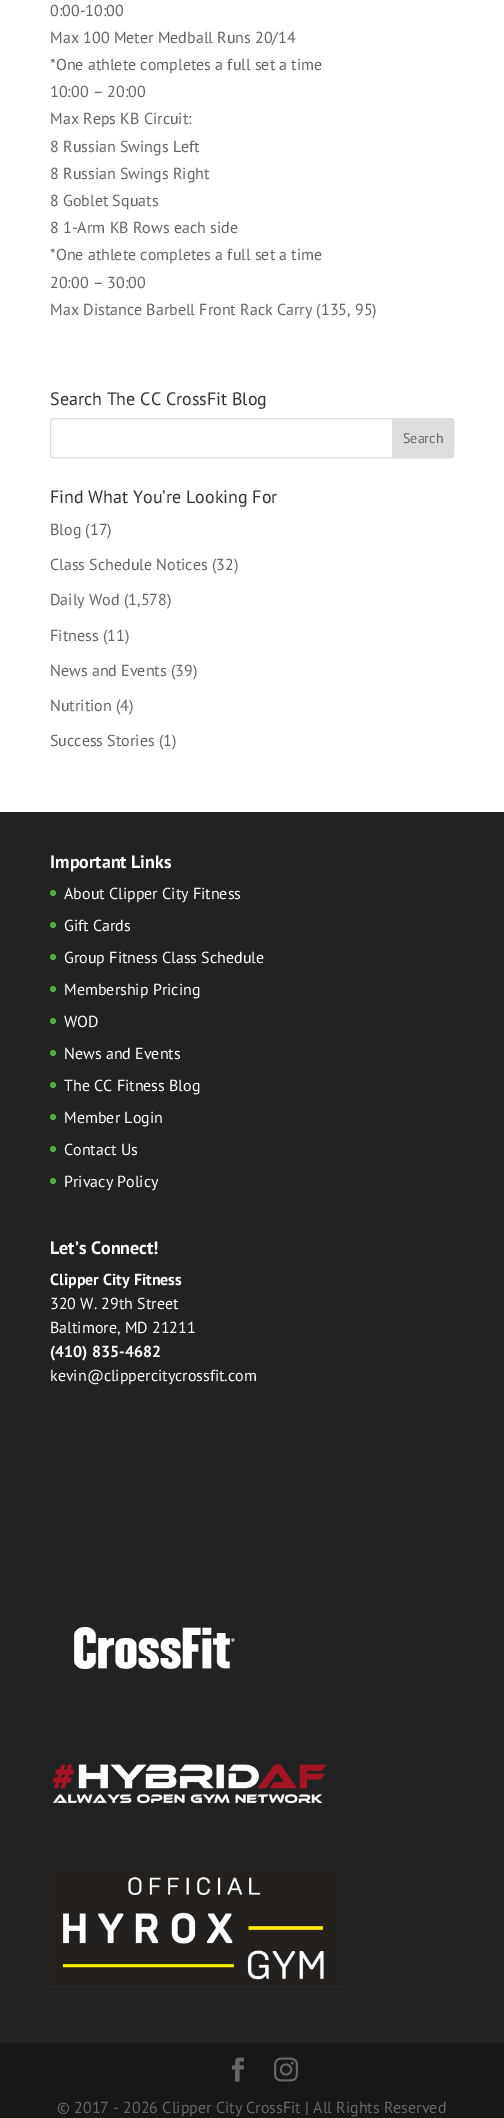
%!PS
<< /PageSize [504 2118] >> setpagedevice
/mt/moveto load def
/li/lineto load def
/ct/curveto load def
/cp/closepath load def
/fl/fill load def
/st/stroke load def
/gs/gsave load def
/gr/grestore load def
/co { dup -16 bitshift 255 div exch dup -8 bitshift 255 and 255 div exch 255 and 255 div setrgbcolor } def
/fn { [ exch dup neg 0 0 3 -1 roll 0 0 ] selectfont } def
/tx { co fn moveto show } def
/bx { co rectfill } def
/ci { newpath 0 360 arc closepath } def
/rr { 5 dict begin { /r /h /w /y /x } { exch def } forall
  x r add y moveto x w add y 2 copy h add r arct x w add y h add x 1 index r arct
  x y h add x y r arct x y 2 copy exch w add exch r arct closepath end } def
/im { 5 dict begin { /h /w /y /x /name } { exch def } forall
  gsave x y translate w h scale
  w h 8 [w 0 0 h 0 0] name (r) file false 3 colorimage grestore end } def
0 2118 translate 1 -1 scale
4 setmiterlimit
0 0 504 2118 16#FFFFFF bx
16#DDDDDD co
50.5 418.5 403 39 2.5 rr st
392.5 418.5 mt 451 418.5 li 452.5 418.5 453.5 419.5 453.5 421 ct 453.5 455 li 453.5 456.5 452.5 457.5 451 457.5 ct 392.5 457.5 li cp gs fl gr
st
0 812 504 1231 16#222222 bx
16#4EB048 co
53 893 3 ci fl
53 925 3 ci fl
53 957 3 ci fl
53 989 3 ci fl
53 1021 3 ci fl
53 1053 3 ci fl
53 1085 3 ci fl
53 1117 3 ci fl
53 1149 3 ci fl
53 1181 3 ci fl
(media/1.raw) 74 1627 161 42 im
(media/2.raw) 52 1764 275 40 im
(media/3.raw) 50 1867 293 120 im
0 2043 504 75 16#171717 bx
(media/4.raw) 232 2057 12 25 im
(media/5.raw) 274 2057 24 25 im
(0:00-10:00) 50 16 /PTSans-Regular 16 16#666666 tx
(Max 100 Meter Medball Runs 20/14) 50 43 /PTSans-Regular 16 16#666666 tx
(*One athlete completes a full set a time) 50 70 /PTSans-Regular 16 16#666666 tx
(10:00 – 20:00) 50 97 /PTSans-Regular 16 16#666666 tx
(Max Reps KB Circuit:) 50 124 /PTSans-Regular 16 16#666666 tx
(8 Russian Swings Left) 50 152 /PTSans-Regular 16 16#666666 tx
(8 Russian Swings Right) 50 179 /PTSans-Regular 16 16#666666 tx
(8 Goblet Squats) 50 206 /PTSans-Regular 16 16#666666 tx
(8 1-Arm KB Rows each side) 50 233 /PTSans-Regular 16 16#666666 tx
(*One athlete completes a full set a time) 50 260 /PTSans-Regular 16 16#666666 tx
(20:00 – 30:00) 50 288 /PTSans-Regular 16 16#666666 tx
(Max Distance Barbell Front Rack Carry \(135, 95\)) 50 315 /PTSans-Regular 16 16#666666 tx
(Search The CC CrossFit Blog) 50 405 /PTSans-Regular 18 16#333333 tx
(Search) 403 443 /PTSans-Regular 14 16#666666 tx
(Find What You’re Looking For) 50 503 /PTSans-Regular 18 16#333333 tx
(Blog \(17\)) 50 535 /PTSans-Regular 16 16#666666 tx
(Class Schedule Notices \(32\)) 50 570 /PTSans-Regular 16 16#666666 tx
(Daily Wod \(1,578\)) 50 605 /PTSans-Regular 16 16#666666 tx
(Fitness \(11\)) 50 641 /PTSans-Regular 16 16#666666 tx
(News and Events \(39\)) 50 676 /PTSans-Regular 16 16#666666 tx
(Nutrition \(4\)) 50 711 /PTSans-Regular 16 16#666666 tx
(Success Stories \(1\)) 50 746 /PTSans-Regular 16 16#666666 tx
(Important Links) 50 868 /PTSans-Bold 18 16#FFFFFF tx
(About Clipper City Fitness) 64 899 /PTSans-Regular 16 16#FFFFFF tx
(Gift Cards) 64 931 /PTSans-Regular 16 16#FFFFFF tx
(Group Fitness Class Schedule) 64 963 /PTSans-Regular 16 16#FFFFFF tx
(Membership Pricing) 64 995 /PTSans-Regular 16 16#FFFFFF tx
(WOD) 64 1027 /PTSans-Regular 16 16#FFFFFF tx
(News and Events) 64 1059 /PTSans-Regular 16 16#FFFFFF tx
(The CC Fitness Blog) 64 1091 /PTSans-Regular 16 16#FFFFFF tx
(Member Login) 64 1123 /PTSans-Regular 16 16#FFFFFF tx
(Contact Us) 64 1155 /PTSans-Regular 16 16#FFFFFF tx
(Privacy Policy) 64 1187 /PTSans-Regular 16 16#FFFFFF tx
(Let’s Connect!) 50 1254 /PTSans-Bold 18 16#FFFFFF tx
(Clipper City Fitness) 50 1285 /PTSans-Bold 16 16#FFFFFF tx
(320 W. 29th Street) 50 1309 /PTSans-Regular 16 16#FFFFFF tx
(Baltimore, MD 21211) 50 1333 /PTSans-Regular 16 16#FFFFFF tx
(\(410\) 835-4682) 50 1357 /PTSans-Bold 16 16#FFFFFF tx
(kevin@clippercitycrossfit.com) 50 1381 /PTSans-Regular 16 16#FFFFFF tx
(© 2017 - 2026 Clipper City CrossFit | All Rights Reserved) 57 2113 /PTSans-Regular 16 16#666666 tx
showpage
